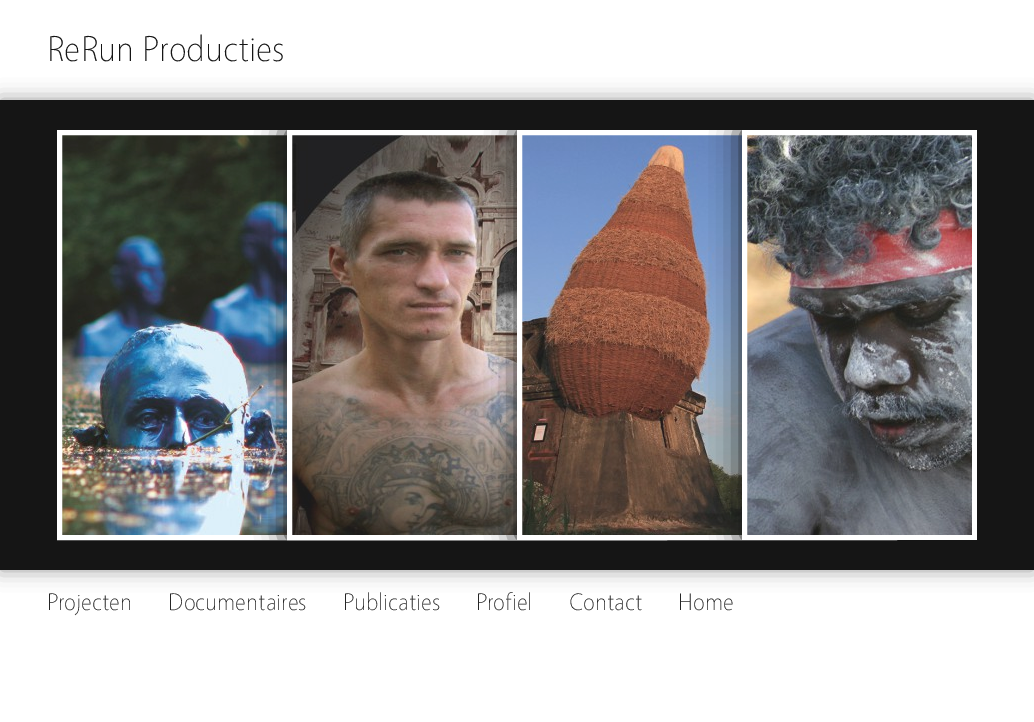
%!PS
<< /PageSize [1034 722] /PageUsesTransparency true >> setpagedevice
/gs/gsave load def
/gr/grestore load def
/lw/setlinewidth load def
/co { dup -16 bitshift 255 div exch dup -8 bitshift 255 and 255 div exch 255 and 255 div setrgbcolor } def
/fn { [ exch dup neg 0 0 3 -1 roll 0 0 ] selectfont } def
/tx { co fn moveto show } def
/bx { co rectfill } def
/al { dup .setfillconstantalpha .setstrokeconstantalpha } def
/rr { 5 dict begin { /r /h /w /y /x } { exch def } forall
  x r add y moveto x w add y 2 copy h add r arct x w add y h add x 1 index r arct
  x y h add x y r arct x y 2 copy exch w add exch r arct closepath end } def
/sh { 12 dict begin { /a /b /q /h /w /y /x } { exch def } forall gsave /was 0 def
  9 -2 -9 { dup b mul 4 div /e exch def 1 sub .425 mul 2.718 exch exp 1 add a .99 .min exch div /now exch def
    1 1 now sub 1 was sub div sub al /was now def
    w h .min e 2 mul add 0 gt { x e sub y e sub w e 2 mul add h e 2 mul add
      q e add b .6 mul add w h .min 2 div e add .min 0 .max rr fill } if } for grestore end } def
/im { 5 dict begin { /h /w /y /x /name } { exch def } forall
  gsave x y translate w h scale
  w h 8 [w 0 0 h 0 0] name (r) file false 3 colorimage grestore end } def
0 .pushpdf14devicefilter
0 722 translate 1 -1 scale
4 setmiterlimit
0 0 1034 722 16#FFFFFF bx
16#999999 co
0 100 1034 470 0 10 1 sh
0 100 1034 470 16#151515 bx
972 130 5 410 16#FFFFFF bx
(media/3.raw) 62 135 225 400 im
5 lw
59.5 132.5 605 405 rectstroke
gs
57 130 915 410 rectclip
16#000000 co
287 130 230 410 0 15 1 sh
gr
(media/1.raw) 292 135 225 400 im
289.5 132.5 605 405 rectstroke
gs
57 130 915 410 rectclip
16#000000 co
517 130 230 410 0 15 1 sh
gr
0.1 al
292 135 225 400 16#FFFFFF bx
1 al
(media/2.raw) 522 135 220 400 im
gs
517 130 230 410 rectclip
519.5 132.5 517 405 rectstroke
gr
gs
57 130 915 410 rectclip
16#000000 co
742 130 230 410 0 15 1 sh
gr
0.1 al
522 135 220 400 16#FFFFFF bx
62 135 225 400 16#FFFFFF bx
1 al
(media/4.raw) 747 135 225 400 im
gs
742 130 230 410 rectclip
744.5 132.5 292 405 rectstroke
gr
(ReRun Producties) 47 61 /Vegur-Light 36 16#151515 tx
(Projecten) 47 610 /Vegur-Light 24 16#252525 tx
(Documentaires) 168 610 /Vegur-Light 24 16#252525 tx
(Publicaties) 343 610 /Vegur-Light 24 16#252525 tx
(Profiel) 476 610 /Vegur-Light 24 16#252525 tx
(Contact) 569 610 /Vegur-Light 24 16#252525 tx
(Home) 678 610 /Vegur-Light 24 16#252525 tx
.poppdf14devicefilter showpage
